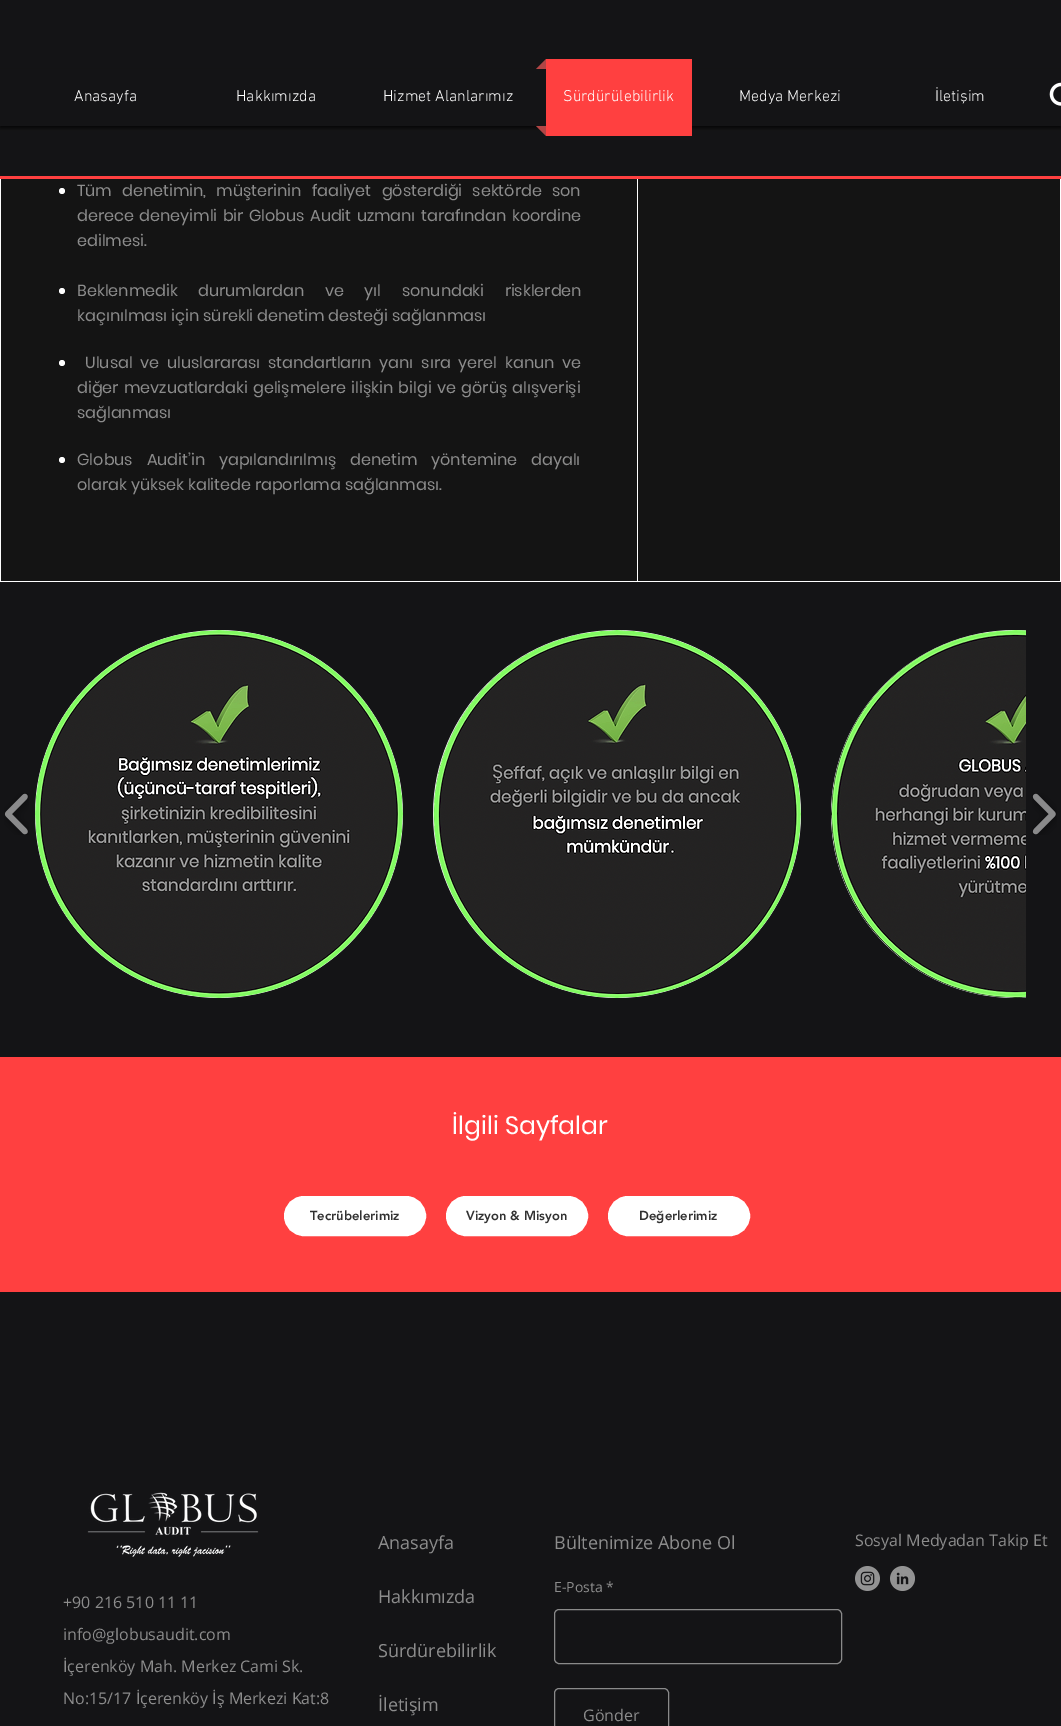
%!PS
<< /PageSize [1061 1726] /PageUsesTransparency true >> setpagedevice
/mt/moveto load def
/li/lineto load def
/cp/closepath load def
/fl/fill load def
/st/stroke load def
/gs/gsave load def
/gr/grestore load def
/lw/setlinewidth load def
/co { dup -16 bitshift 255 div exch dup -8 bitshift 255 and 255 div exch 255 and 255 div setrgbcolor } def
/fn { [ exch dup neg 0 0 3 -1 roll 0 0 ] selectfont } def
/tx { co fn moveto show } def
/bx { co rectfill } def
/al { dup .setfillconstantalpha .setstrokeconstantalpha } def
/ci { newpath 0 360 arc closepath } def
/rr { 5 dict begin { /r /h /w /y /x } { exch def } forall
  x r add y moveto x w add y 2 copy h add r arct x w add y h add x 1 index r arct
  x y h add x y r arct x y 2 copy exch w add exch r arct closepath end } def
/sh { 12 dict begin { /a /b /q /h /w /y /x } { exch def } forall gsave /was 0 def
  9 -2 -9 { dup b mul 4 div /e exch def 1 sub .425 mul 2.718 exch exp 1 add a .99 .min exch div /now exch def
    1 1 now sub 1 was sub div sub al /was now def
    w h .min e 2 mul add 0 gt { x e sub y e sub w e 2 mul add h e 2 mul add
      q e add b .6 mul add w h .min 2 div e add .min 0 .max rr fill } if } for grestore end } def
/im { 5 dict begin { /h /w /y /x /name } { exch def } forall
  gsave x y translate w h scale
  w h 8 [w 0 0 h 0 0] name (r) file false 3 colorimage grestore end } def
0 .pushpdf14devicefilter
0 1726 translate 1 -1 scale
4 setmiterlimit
0 0 1061 1726 16#141416 bx
gs
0 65 mt 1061 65 li 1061 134 li 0 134 li cp 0 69 mt 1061 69 li 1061 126 li 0 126 li cp eoclip newpath
16#000000 co
0 71 1061 57 0 1.5 .7 sh
gr
16#B14545 co
546 69 mt 536 69 li 546 59 li cp fl
546 59 146 77 16#FF4040 bx
16#B14545 co
536 126 mt 546 126 li 546 136 li cp fl
(media/1.raw) 1049 82 12 24 im
0 176 1061 3 16#FF4040 bx
0 179 1061 403 16#FFFFFF bx
1 179 636 402 16#141414 bx
16#FFFFFF co
62 191 3 ci fl
62 291 3 ci fl
62 363 3 ci fl
62 460 3 ci fl
638 179 422 402 16#141414 bx
(media/2.raw) 4 793 25 42 im
16#FFFFFF co
219 814 184 ci fl
(media/3.raw) 35 630 368 368 im
617 814 184 ci fl
(media/4.raw) 433 630 368 368 im
gs
35 630 991 368 rectclip
1015 814 184 ci fl
gr
(media/5.raw) 831 630 195 368 im
(media/6.raw) 1032 793 25 42 im
0 1057 1061 235 16#FF4040 bx
16#FFFFFF co
285 1197 140 38 19 rr gs fl gr
2 lw
st
447 1197 140 38 19 rr gs fl gr
st
609 1197 140 38 19 rr gs fl gr
st
(media/7.raw) 87 1492 172 65 im
16#8A8A8A co
1 lw
554.5 1609.5 287 54 4.5 rr st
554.5 1688.5 114 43 4.5 rr st
(media/8.raw) 855 1566 25 25 im
(media/9.raw) 890 1566 25 25 im
(Anasayfa) 74 101 /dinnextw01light-Light 16 16#FFFFFF tx
(Hakkımızda) 236 101 /dinnextw01light-Light 16 16#FFFFFF tx
(Hizmet Alanlarımız) 383 101 /dinnextw01light-Light 16 16#FFFFFF tx
(Sürdürülebilirlik) 563 101 /dinnextw01light-Light 16 16#FFFFFF tx
(Medya Merkezi) 739 101 /dinnextw01light-Light 16 16#FFFFFF tx
(İletişim) 935 101 /dinnextw01light-Light 16 16#FFFFFF tx
/Poppins-Regular 16 fn
16#8C8C8C co
77 196 mt 6.25 0 32 (Tüm denetimin, müşterinin faaliyet gösterdiği sektörde son) widthshow
77 221 mt 1.5 0 32 (derece deneyimli bir Globus Audit uzmanı tarafından koordine) widthshow
(edilmesi.) 77 246 /Poppins-Regular 16 16#8C8C8C tx
77 296 mt 16.5 0 32 (Beklenmedik durumlardan ve yıl sonundaki risklerden) widthshow
(kaçınılması için sürekli denetim desteği sağlanması) 77 321 /Poppins-Regular 16 16#8C8C8C tx
85 368 mt 3.75 0 32 (Ulusal ve uluslararası standartların yanı sıra yerel kanun ve) widthshow
77 393 mt 1.5 0 32 (diğer mevzuatlardaki gelişmelere ilişkin bilgi ve görüş alışverişi) widthshow
(sağlanması) 77 418 /Poppins-Regular 16 16#8C8C8C tx
77 465 mt 10 0 32 (Globus Audit’in yapılandırılmış denetim yöntemine dayalı) widthshow
(olarak yüksek kalitede raporlama sağlanması.) 77 490 /Poppins-Regular 16 16#8C8C8C tx
(İlgili Sayfalar) 452 1134 /Poppins-Regular 25 16#FFFFFF tx
(Tecrübelerimiz) 310 1220 /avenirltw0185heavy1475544-Black 13 16#323232 tx
(Vizyon & Misyon) 466 1220 /avenirltw0185heavy1475544-Black 13 16#323232 tx
(Değerlerimiz) 639 1220 /avenirltw0185heavy1475544-Black 13 16#323232 tx
(+90 216 510 11 11) 63 1608 /OpenSans-Regular 16 16#8C8C8C tx
(info@globusaudit.com) 63 1640 /OpenSans-Regular 16 16#8C8C8C tx
(İçerenköy Mah. Merkez Cami Sk.) 63 1672 /OpenSans-Regular 16 16#8C8C8C tx
(No:15/17 İçerenköy İş Merkezi Kat:8) 63 1704 /OpenSans-Regular 16 16#8C8C8C tx
(Anasayfa) 378 1549 /OpenSans-Regular 18 16#8C8C8C tx
(Hakkımızda) 378 1603 /OpenSans-Regular 18 16#8C8C8C tx
(Sürdürebilirlik) 378 1657 /OpenSans-Regular 18 16#8C8C8C tx
(İletişim) 378 1711 /OpenSans-Regular 18 16#8C8C8C tx
(Bültenimize Abone Ol) 554 1549 /OpenSans-Regular 18 16#8C8C8C tx
(E-Posta *) 554 1592 /OpenSans-Regular 14 16#8C8C8C tx
(Gönder) 583 1721 /OpenSans-Regular 16 16#8C8C8C tx
(Sosyal Medyadan Takip Et) 855 1546 /OpenSans-Regular 16 16#8C8C8C tx
.poppdf14devicefilter showpage
